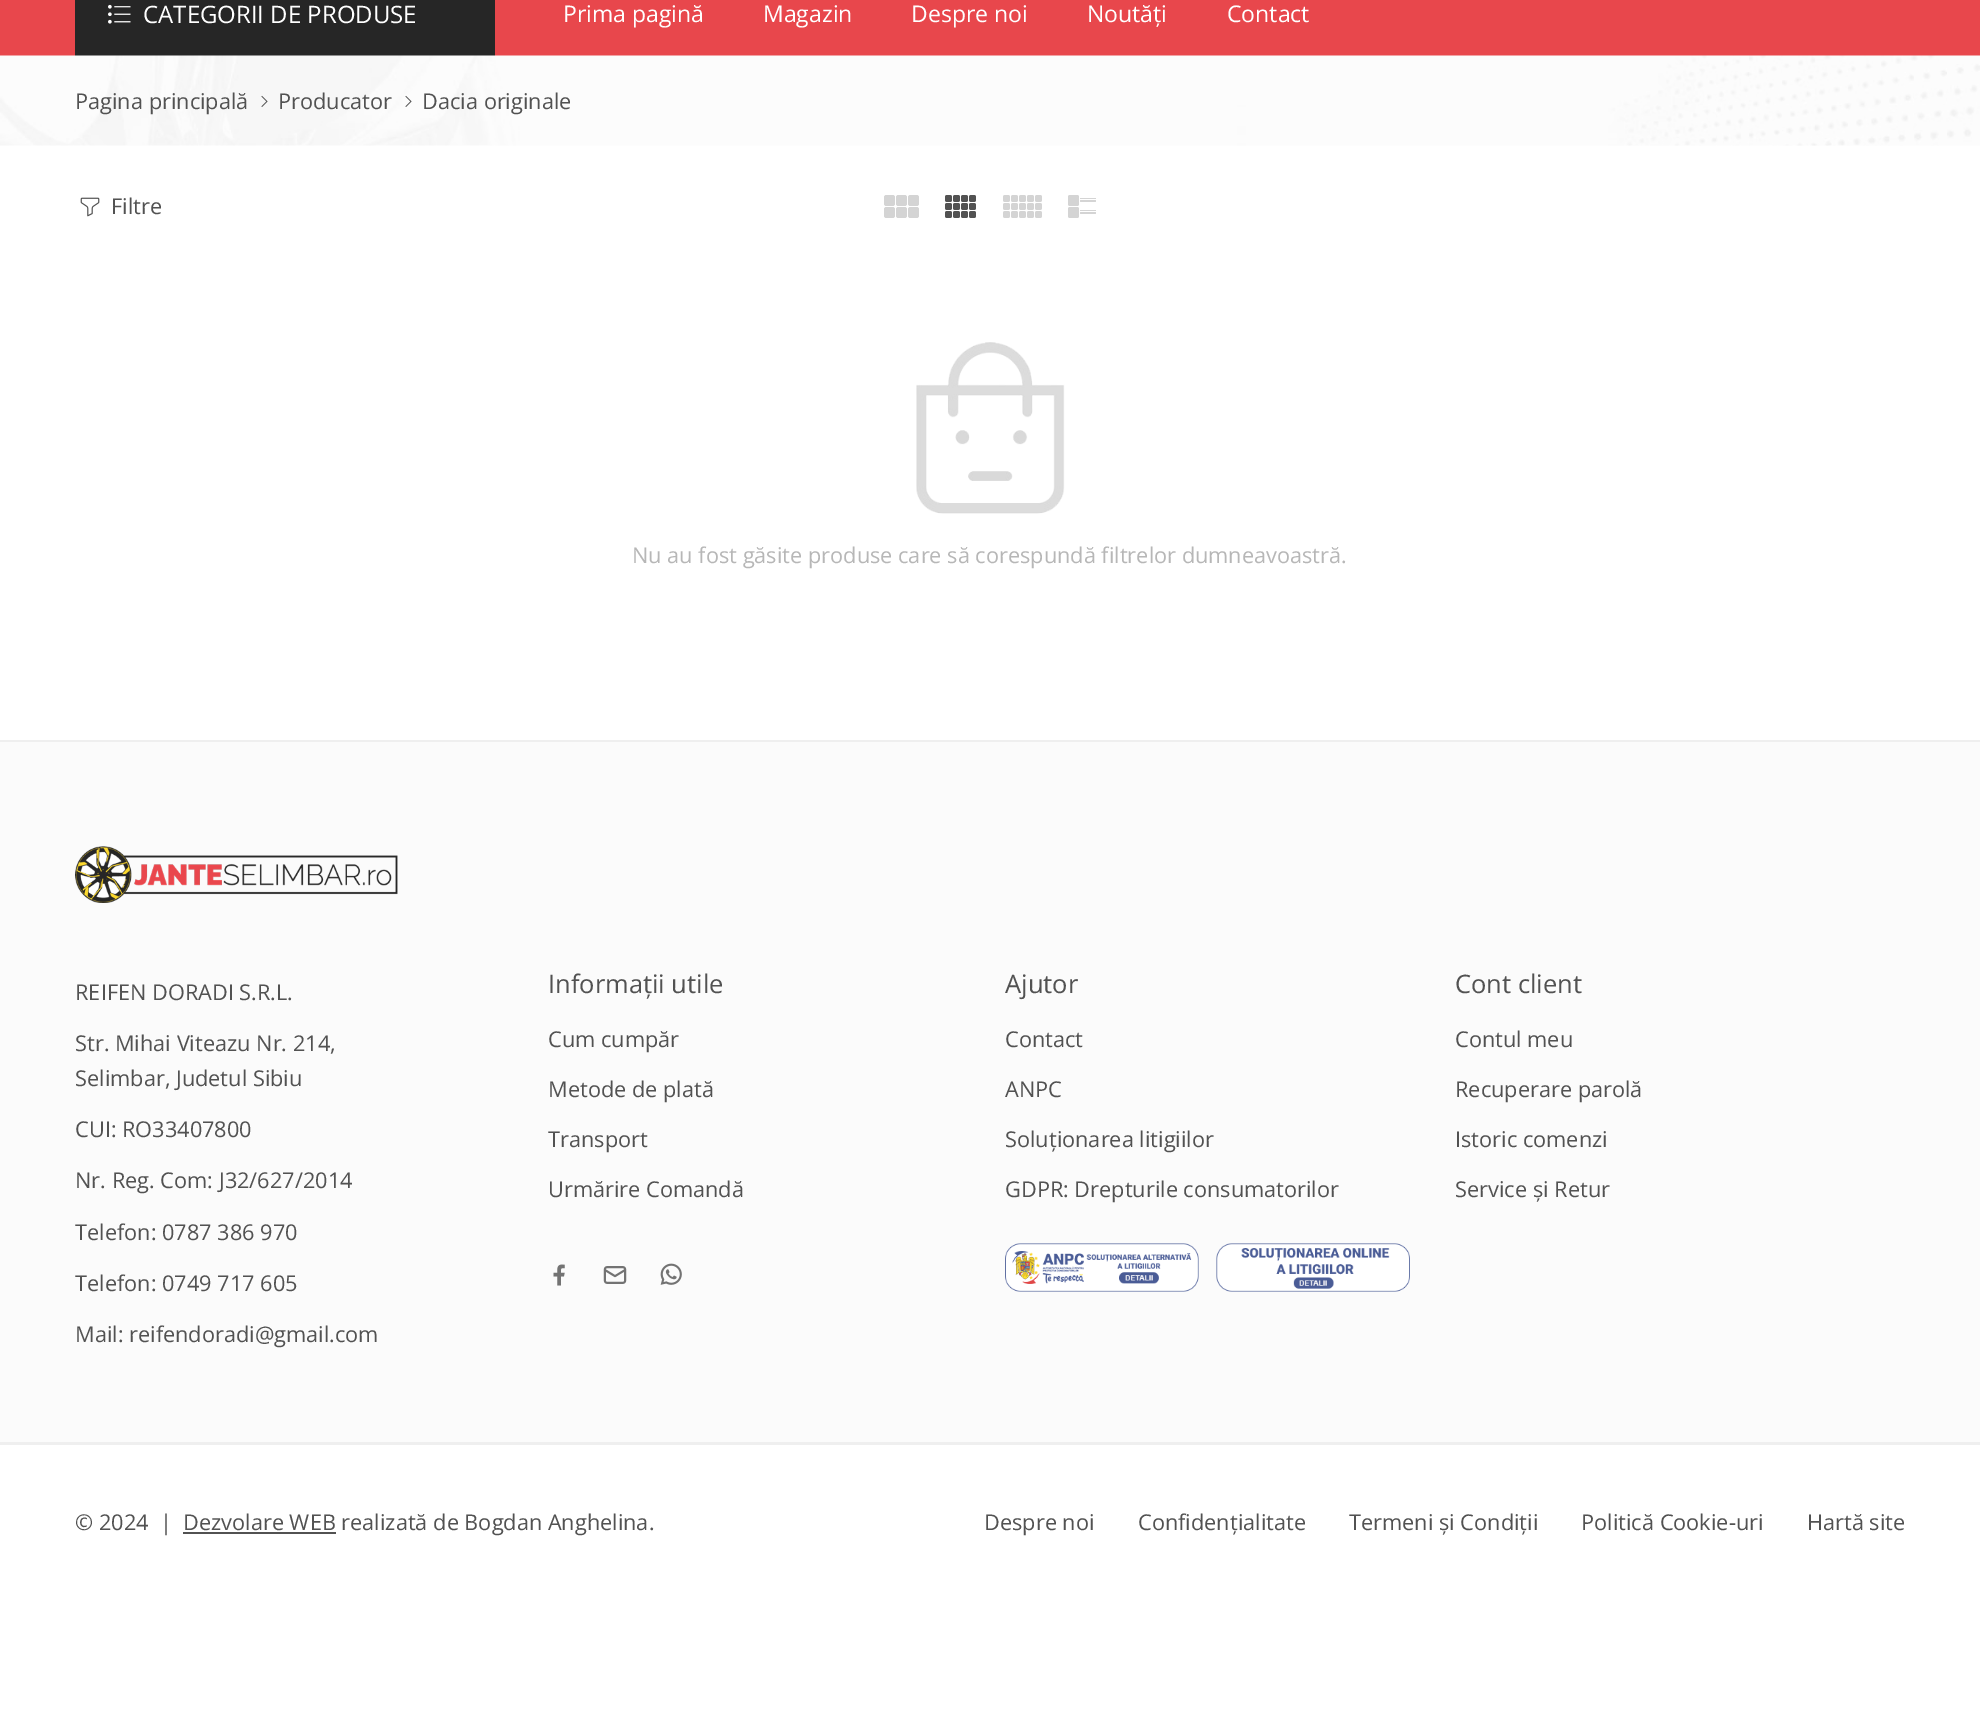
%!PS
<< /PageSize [1980 1714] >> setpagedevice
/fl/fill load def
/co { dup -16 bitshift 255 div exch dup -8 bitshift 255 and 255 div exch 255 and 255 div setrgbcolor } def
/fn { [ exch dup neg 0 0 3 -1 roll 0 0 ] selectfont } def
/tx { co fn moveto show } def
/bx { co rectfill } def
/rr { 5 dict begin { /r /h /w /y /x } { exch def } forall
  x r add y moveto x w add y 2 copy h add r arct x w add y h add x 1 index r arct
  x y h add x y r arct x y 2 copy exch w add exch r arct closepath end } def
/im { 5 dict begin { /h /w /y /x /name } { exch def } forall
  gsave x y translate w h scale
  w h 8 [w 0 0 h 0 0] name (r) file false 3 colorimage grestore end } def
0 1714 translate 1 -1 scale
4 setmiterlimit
0 0 1980 1714 16#FFFFFF bx
0 0 1980 56 16#E8474C bx
75 0 420 56 16#262626 bx
(media/1.raw) 108 4 23 20 im
(media/2.raw) 0 55 1980 91 im
(media/3.raw) 261 95 7 12 im
(media/4.raw) 405 95 7 12 im
(media/5.raw) 80 197 20 20 im
16#D4D4D4 co
884 195 11 11 2.5 rr fl
884 207 11 11 2.5 rr fl
896 195 11 11 2.5 rr fl
908 195 11 11 2.5 rr fl
896 207 11 11 2.5 rr fl
908 207 11 11 2.5 rr fl
(media/6.raw) 945 195 31 23 im
(media/7.raw) 1003 195 39 23 im
1080 198 16 1 .5 rr fl
1080 200 16 2 1 rr fl
1068 195 11 11 2 rr fl
1080 210 16 1 .5 rr fl
1080 212 16 2 1 rr fl
1068 207 11 11 2 rr fl
(media/8.raw) 916 342 149 172 im
0 742 1980 700 16#FBFBFB bx
0 740 1980 2 16#EFEFEF bx
0 1442 1980 3 16#EFEFEF bx
(media/9.raw) 75 846 323 57 im
(media/10.raw) 553 1264 12 22 im
(media/11.raw) 603 1266 24 18 im
(media/12.raw) 660 1263 22 22 im
(media/13.raw) 1005 1243 194 49 im
(media/14.raw) 1216 1243 194 49 im
183 1532 153 2 16#525252 bx
(CATEGORII DE PRODUSE) 143 23 /OpenSans-Regular 24 16#FFFFFF tx
(Prima pagină) 563 22 /OpenSans-Regular 23 16#FFFFFF tx
(Magazin) 763 22 /OpenSans-Regular 23 16#FFFFFF tx
(Despre noi) 911 22 /OpenSans-Regular 23 16#FFFFFF tx
(Noutăți) 1087 22 /OpenSans-Regular 23 16#FFFFFF tx
(Contact) 1227 22 /OpenSans-Regular 23 16#FFFFFF tx
(Pagina principală) 75 109 /OpenSans-Regular 21.75 16#525252 tx
(Producator) 278 109 /OpenSans-Regular 21.75 16#525252 tx
(Dacia originale) 422 109 /OpenSans-Regular 21.75 16#525252 tx
(Filtre) 111 214 /OpenSans-Regular 21.75 16#525252 tx
(Nu au fost găsite produse care să corespundă filtrelor dumneavoastră.) 632 563 /OpenSans-Regular 21.75 16#B7B7B7 tx
(REIFEN DORADI S.R.L.) 75 1000 /OpenSans-Regular 21.75 16#525252 tx
(Str. Mihai Viteazu Nr. 214,) 75 1051 /OpenSans-Regular 21.75 16#525252 tx
(Selimbar, Judetul Sibiu) 75 1086 /OpenSans-Regular 21.75 16#525252 tx
(CUI: RO33407800) 75 1137 /OpenSans-Regular 21.75 16#525252 tx
(Nr. Reg. Com: J32/627/2014) 75 1188 /OpenSans-Regular 21.75 16#525252 tx
(Telefon: 0787 386 970) 75 1240 /OpenSans-Regular 21.75 16#525252 tx
(Telefon: 0749 717 605) 75 1291 /OpenSans-Regular 21.75 16#525252 tx
(Mail: reifendoradi@gmail.com) 75 1342 /OpenSans-Regular 21.75 16#525252 tx
(Informații utile) 548 993 /OpenSans-Regular 25.5 16#525252 tx
(Cum cumpăr) 548 1047 /OpenSans-Regular 21.75 16#525252 tx
(Metode de plată) 548 1097 /OpenSans-Regular 21.75 16#525252 tx
(Transport) 548 1147 /OpenSans-Regular 21.75 16#525252 tx
(Urmărire Comandă) 548 1197 /OpenSans-Regular 21.75 16#525252 tx
(Ajutor) 1005 993 /OpenSans-Regular 25.5 16#525252 tx
(Contact) 1005 1047 /OpenSans-Regular 21.75 16#525252 tx
(ANPC) 1005 1097 /OpenSans-Regular 21.75 16#525252 tx
(Soluționarea litigiilor) 1005 1147 /OpenSans-Regular 21.75 16#525252 tx
(GDPR: Drepturile consumatorilor) 1005 1197 /OpenSans-Regular 21.75 16#525252 tx
(Cont client) 1455 993 /OpenSans-Regular 25.5 16#525252 tx
(Contul meu) 1455 1047 /OpenSans-Regular 21.75 16#525252 tx
(Recuperare parolă) 1455 1097 /OpenSans-Regular 21.75 16#525252 tx
(Istoric comenzi) 1455 1147 /OpenSans-Regular 21.75 16#525252 tx
(Service și Retur) 1455 1197 /OpenSans-Regular 21.75 16#525252 tx
(© 2024  |) 75 1530 /OpenSans-Regular 21.75 16#525252 tx
(Dezvolare WEB realizată de Bogdan Anghelina.) 183 1530 /OpenSans-Regular 21.75 16#525252 tx
(Despre noi) 984 1530 /OpenSans-Regular 21.75 16#525252 tx
(Confidențialitate) 1138 1530 /OpenSans-Regular 21.75 16#525252 tx
(Termeni și Condiții) 1349 1530 /OpenSans-Regular 21.75 16#525252 tx
(Politică Cookie-uri) 1581 1530 /OpenSans-Regular 21.75 16#525252 tx
(Hartă site) 1807 1530 /OpenSans-Regular 21.75 16#525252 tx
showpage
